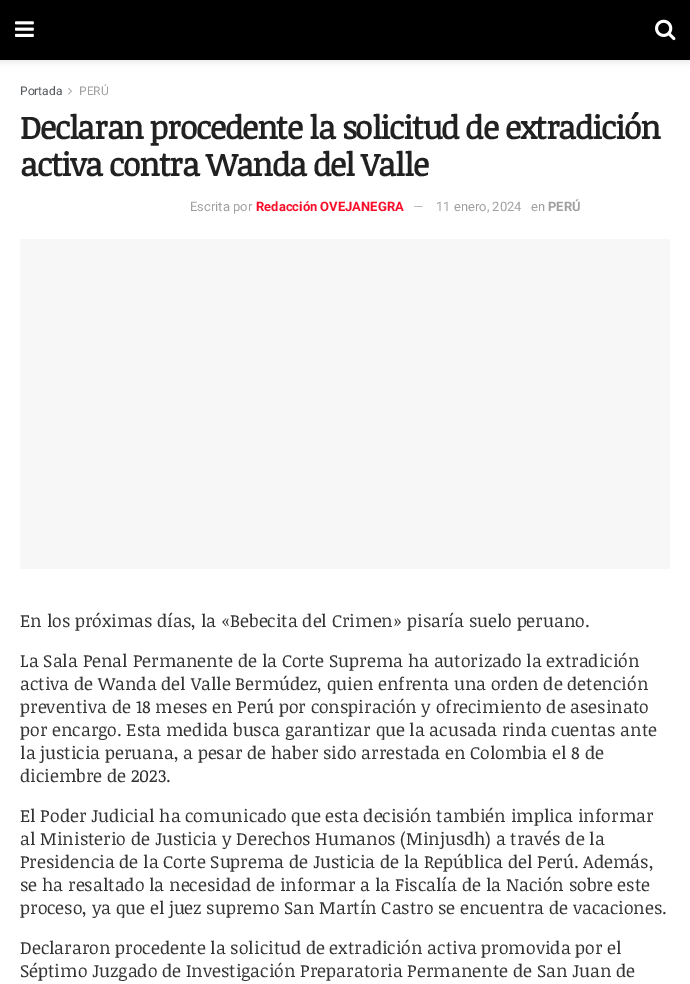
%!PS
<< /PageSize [690 984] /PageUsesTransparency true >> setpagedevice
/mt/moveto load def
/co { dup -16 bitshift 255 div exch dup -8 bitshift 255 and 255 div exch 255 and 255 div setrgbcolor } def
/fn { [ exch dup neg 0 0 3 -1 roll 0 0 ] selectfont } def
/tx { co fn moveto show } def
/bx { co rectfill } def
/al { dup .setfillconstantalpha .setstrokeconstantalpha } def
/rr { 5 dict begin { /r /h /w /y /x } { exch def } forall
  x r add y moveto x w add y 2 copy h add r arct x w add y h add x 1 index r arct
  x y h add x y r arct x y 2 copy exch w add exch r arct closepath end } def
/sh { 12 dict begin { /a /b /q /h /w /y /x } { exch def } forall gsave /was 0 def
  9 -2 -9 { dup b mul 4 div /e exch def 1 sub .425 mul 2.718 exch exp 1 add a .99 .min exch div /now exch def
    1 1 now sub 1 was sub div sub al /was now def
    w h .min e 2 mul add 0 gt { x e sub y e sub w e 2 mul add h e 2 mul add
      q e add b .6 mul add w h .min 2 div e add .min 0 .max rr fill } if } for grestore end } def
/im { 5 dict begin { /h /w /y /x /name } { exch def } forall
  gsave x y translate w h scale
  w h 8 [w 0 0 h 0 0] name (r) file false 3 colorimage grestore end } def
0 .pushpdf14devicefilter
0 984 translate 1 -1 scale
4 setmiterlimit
0 0 690 984 16#FFFFFF bx
16#000000 co
0 2 690 60 0 3 .1 sh
0 0 690 60 16#000000 bx
(media/1.raw) 15 21 19 16 im
(media/2.raw) 655 19 21 22 im
(media/3.raw) 68 87 4 8 im
20 239 650 330 16#F7F7F7 bx
(Portada) 20 95 /Roboto-Regular 12 16#53585C tx
(PERÚ) 79 95 /Roboto-Regular 12 16#A0A0A0 tx
/NoticiaText-Bold 32 fn
16#212121 co
20 139 mt -1.3 0 (Declaran procedente la solicitud de extradición) ashow
20 176 mt -1.3 0 (activa contra Wanda del Valle) ashow
(Escrita por) 190 211 /Roboto-Regular 13 16#A0A0A0 tx
(Redacción OVEJANEGRA) 256 211 /Roboto-Bold 13 16#F70D28 tx
(—) 413 211 /Roboto-Regular 13 16#A0A0A0 tx
(11 enero, 2024) 436 211 /Roboto-Regular 13 16#A0A0A0 tx
(en) 531 211 /Roboto-Regular 13 16#A0A0A0 tx
(PERÚ) 548 211 /Roboto-Bold 13 16#A0A0A0 tx
(En los próximas días, la «Bebecita del Crimen» pisaría suelo peruano.) 20 627 /NoticiaText-Regular 17.6 16#333333 tx
(La Sala Penal Permanente de la Corte Suprema ha autorizado la extradición) 20 667 /NoticiaText-Regular 17.6 16#333333 tx
(activa de Wanda del Valle Bermúdez, quien enfrenta una orden de detención) 20 690 /NoticiaText-Regular 17.6 16#333333 tx
(preventiva de 18 meses en Perú por conspiración y ofrecimiento de asesinato) 20 713 /NoticiaText-Regular 17.6 16#333333 tx
(por encargo. Esta medida busca garantizar que la acusada rinda cuentas ante) 20 736 /NoticiaText-Regular 17.6 16#333333 tx
(la justicia peruana, a pesar de haber sido arrestada en Colombia el 8 de) 20 759 /NoticiaText-Regular 17.6 16#333333 tx
(diciembre de 2023.) 20 782 /NoticiaText-Regular 17.6 16#333333 tx
(El Poder Judicial ha comunicado que esta decisión también implica informar) 20 822 /NoticiaText-Regular 17.6 16#333333 tx
(al Ministerio de Justicia y Derechos Humanos \(Minjusdh\) a través de la) 20 845 /NoticiaText-Regular 17.6 16#333333 tx
(Presidencia de la Corte Suprema de Justicia de la República del Perú. Además,) 20 868 /NoticiaText-Regular 17.6 16#333333 tx
(se ha resaltado la necesidad de informar a la Fiscalía de la Nación sobre este) 20 891 /NoticiaText-Regular 17.6 16#333333 tx
(proceso, ya que el juez supremo San Martín Castro se encuentra de vacaciones.) 20 914 /NoticiaText-Regular 17.6 16#333333 tx
(Declararon procedente la solicitud de extradición activa promovida por el) 20 954 /NoticiaText-Regular 17.6 16#333333 tx
(Séptimo Juzgado de Investigación Preparatoria Permanente de San Juan de) 20 977 /NoticiaText-Regular 17.6 16#333333 tx
.poppdf14devicefilter showpage
